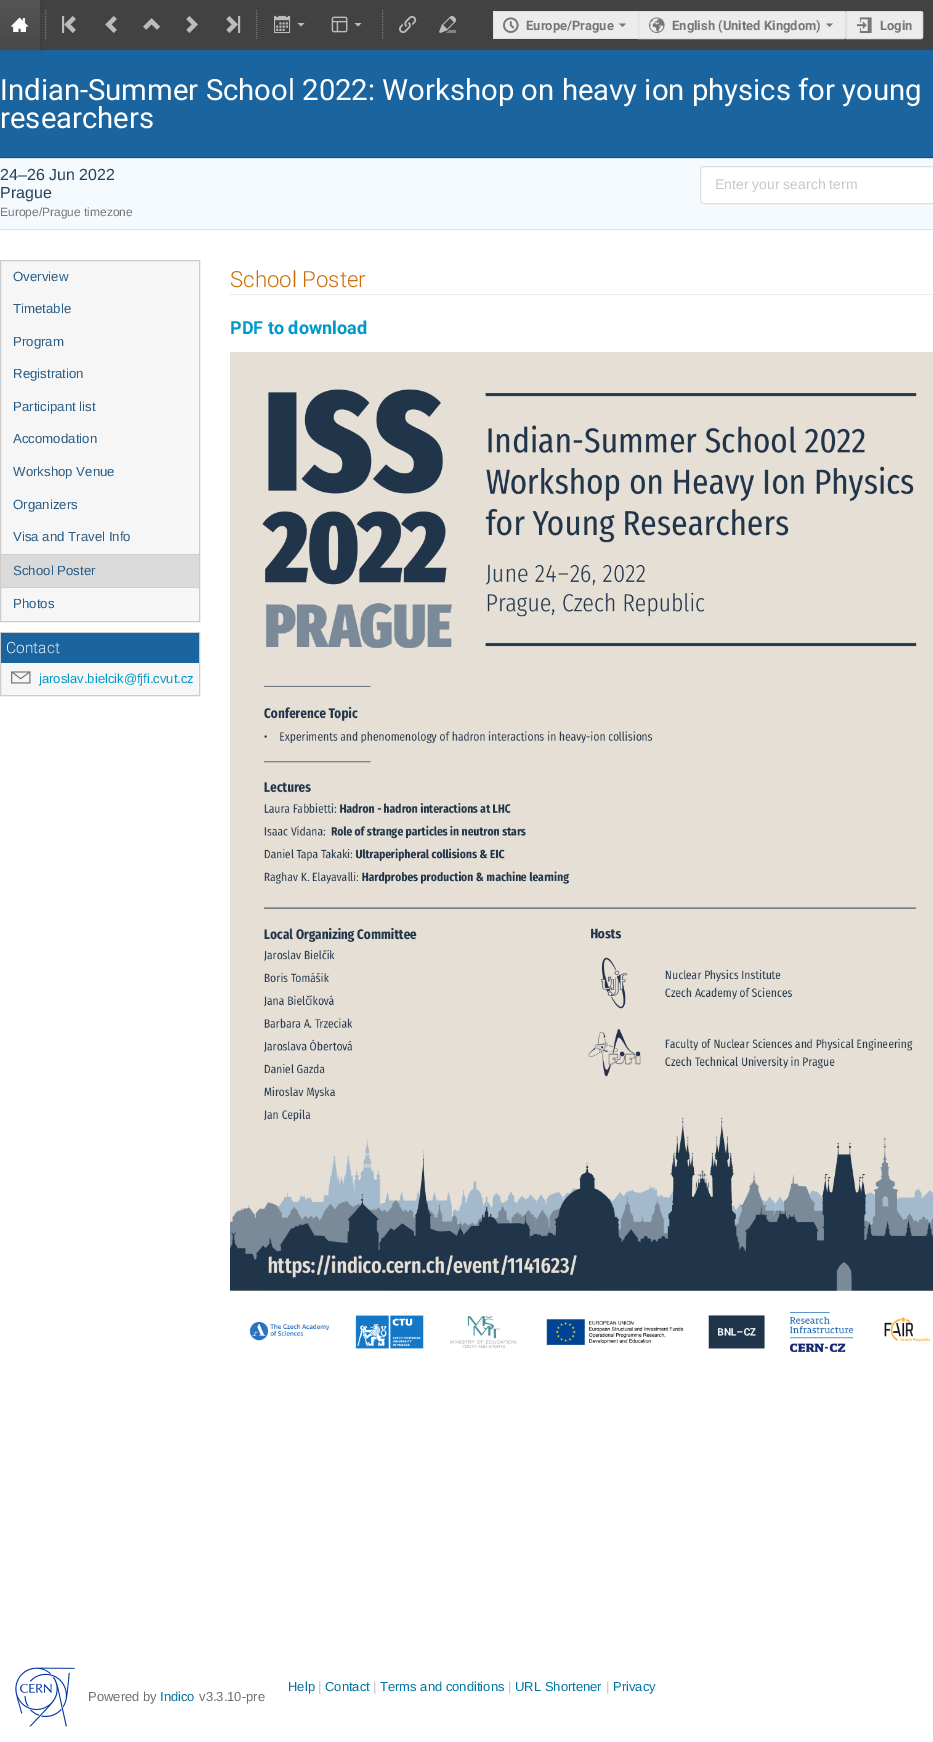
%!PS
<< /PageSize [933 1742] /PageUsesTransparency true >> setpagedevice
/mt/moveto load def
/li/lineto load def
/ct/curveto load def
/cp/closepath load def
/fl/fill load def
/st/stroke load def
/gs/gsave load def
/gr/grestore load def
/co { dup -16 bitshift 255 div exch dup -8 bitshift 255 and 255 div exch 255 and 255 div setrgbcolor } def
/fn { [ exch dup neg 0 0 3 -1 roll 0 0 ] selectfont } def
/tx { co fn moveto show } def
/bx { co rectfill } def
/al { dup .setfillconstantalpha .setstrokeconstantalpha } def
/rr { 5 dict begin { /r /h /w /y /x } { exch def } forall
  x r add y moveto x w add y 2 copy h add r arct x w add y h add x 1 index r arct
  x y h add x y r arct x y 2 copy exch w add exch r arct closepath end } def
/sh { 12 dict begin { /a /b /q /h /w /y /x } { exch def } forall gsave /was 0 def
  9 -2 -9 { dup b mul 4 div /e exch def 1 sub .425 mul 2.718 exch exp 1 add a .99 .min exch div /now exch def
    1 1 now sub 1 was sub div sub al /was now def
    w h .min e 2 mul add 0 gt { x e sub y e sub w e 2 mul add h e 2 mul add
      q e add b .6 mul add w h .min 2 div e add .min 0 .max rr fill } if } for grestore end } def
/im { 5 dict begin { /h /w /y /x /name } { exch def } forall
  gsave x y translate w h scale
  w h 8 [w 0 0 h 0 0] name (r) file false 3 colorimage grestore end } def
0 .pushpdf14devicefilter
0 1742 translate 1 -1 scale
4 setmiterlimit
0 0 933 1742 16#FFFFFF bx
40 0 893 50 16#424242 bx
0 50 933 107 16#1A64A0 bx
16#141414 co
1 1 40 50 0 2 .1 sh
gs 0 0 mt 40 0 li 40 50 li 0 50 li cp clip newpath
<< /ShadingType 2 /ColorSpace /DeviceRGB /Coords [20 0 20 50] /Extend [true true] /Function << /FunctionType 2 /Domain [0 1] /C0 [.333 .333 .333] /C1 [.282 .282 .282] /N 1 >> >> shfill gr
(media/1.raw) 11 17 18 15 im
16#777777 co
[1 1] 0 setdash
45.5 10 mt 45.5 40 li st
(media/2.raw) 62 15 14 19 im
(media/3.raw) 105 16 12 17 im
(media/4.raw) 143 18 17 12 im
(media/5.raw) 186 16 12 17 im
(media/6.raw) 226 15 15 19 im
256.5 10 mt 256.5 40 li st
(media/7.raw) 274 15 17 19 im
16#BBBBBB co
297.5 23 mt 301 26.5 li 304.5 23 li cp fl
(media/8.raw) 331 16 17 17 im
354.5 23 mt 358 26.5 li 361.5 23 li cp fl
16#777777 co
382.5 10 mt 382.5 40 li st
(media/9.raw) 399 15 18 19 im
(media/10.raw) 439 16 18 17 im
494 12 144 26 16#ECECEC bx
493 11 145 1 16#DFDFDF bx
493 38 145 1 16#DFDFDF bx
493 11 1 28 16#DFDFDF bx
(media/11.raw) 503 17 16 16 im
16#777777 co
619 23.5 mt 622.5 27 li 626 23.5 li cp fl
16#ECECEC co
638.5 11.5 mt 844 11.5 li 845 11.5 845.5 12 845.5 13 ct 845.5 37 li 845.5 38 845 38.5 844 38.5 ct 638.5 38.5 li cp gs fl gr
16#DFDFDF co
[] 0 setdash
st
(media/12.raw) 649 17 16 16 im
16#777777 co
826 23.5 mt 829.5 27 li 833 23.5 li cp fl
16#ECECEC co
846.5 11.5 mt 921 11.5 li 922 11.5 922.5 12 922.5 13 ct 922.5 37 li 922.5 38 922 38.5 921 38.5 ct 846.5 38.5 li cp gs fl gr
16#DFDFDF co
st
(media/13.raw) 857 17 15 16 im
0 157 933 1 16#0F4C80 bx
0 159 933 70 16#F5FAFF bx
0 158 933 1 16#D5E4F1 bx
0 229 933 1 16#D5E4F1 bx
16#FFFFFF co
700 166 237 38 4 rr fl
0.15 al
16#222426 co
700.5 166.5 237 37 3.5 rr st
1 al
16#F6F6F6 co
.5 260.5 mt 199.5 260.5 li 199.5 621.5 li .5 621.5 li cp gs fl gr
16#CCCCCC co
st
1 555 198 32 16#DADADA bx
1 554 198 1 16#D0D0D0 bx
1 587 198 1 16#D0D0D0 bx
1 663 198 32 16#F6F6F6 bx
16#CCCCCC co
.5 632.5 199 63 rectstroke
1 633 198 30 16#1A64A0 bx
(media/14.raw) 11 671 20 13 im
230 294 703 1 16#EBEBEB bx
(media/15.raw) 230 352 703 1000 im
(media/16.raw) 15 1667 60 60 im
(Europe/Prague) 526 30 /Roboto-Bold 13 16#777777 tx
(English \(United Kingdom\)) 672 30 /Roboto-Bold 13 16#777777 tx
(Login) 880 30 /Roboto-Bold 13 16#777777 tx
(Indian-Summer School 2022: Workshop on heavy ion physics for young) 0 100 /Roboto-Regular 29.3 16#FFFFFF tx
(researchers) 0 128 /Roboto-Regular 29.3 16#FFFFFF tx
(24–26 Jun 2022) 0 180 /LiberationSans-Regular 16 16#24425A tx
(Prague) 0 198 /LiberationSans-Regular 16 16#24425A tx
(Europe/Prague timezone) 0 216 /LiberationSans-Regular 12 16#777777 tx
(Enter your search term) 715 189 /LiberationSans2-Regular 14 16#C7C7C7 tx
(Overview) 13 281 /LiberationSans2-Regular 13.25 16#275C86 tx
(Timetable) 13 313 /LiberationSans2-Regular 13.25 16#275C86 tx
(Program) 13 346 /LiberationSans2-Regular 13.25 16#275C86 tx
(Registration) 13 378 /LiberationSans2-Regular 13.25 16#275C86 tx
(Participant list) 13 411 /LiberationSans2-Regular 13.25 16#275C86 tx
(Accomodation) 13 443 /LiberationSans2-Regular 13.25 16#275C86 tx
(Workshop Venue) 13 476 /LiberationSans2-Regular 13.25 16#275C86 tx
(Organizers) 13 509 /LiberationSans2-Regular 13.25 16#275C86 tx
(Visa and Travel Info) 13 541 /LiberationSans2-Regular 13.25 16#275C86 tx
(School Poster) 13 575 /LiberationSans2-Regular 13.25 16#275C86 tx
(Photos) 13 608 /LiberationSans2-Regular 13.25 16#275C86 tx
(Contact) 6 653 /Roboto-Light 15.5 16#F3F3F3 tx
(jaroslav.bielcik@fjfi.cvut.cz) 39 683 /LiberationSans-Regular 13 16#0099CC tx
(School Poster) 230 287 /Roboto-Light 22.25 16#CB6D04 tx
(PDF to download) 230 334 /Roboto-Bold 18 16#0099CC tx
(Help) 288 1691 /LiberationSans-Regular 13 16#0075A3 tx
(|) 318 1691 /LiberationSans-Regular 13 16#BBBBBB tx
(Contact) 325 1691 /LiberationSans-Regular 13 16#0075A3 tx
(|) 373 1691 /LiberationSans-Regular 13 16#BBBBBB tx
(Terms and conditions) 380 1691 /LiberationSans-Regular 13 16#0075A3 tx
(|) 508 1691 /LiberationSans-Regular 13 16#BBBBBB tx
(URL Shortener) 515 1691 /LiberationSans-Regular 13 16#0075A3 tx
(|) 606 1691 /LiberationSans-Regular 13 16#BBBBBB tx
(Privacy) 613 1691 /LiberationSans-Regular 13 16#0075A3 tx
(Powered by) 88 1701 /LiberationSans-Regular 13 16#6E6E6E tx
(Indico) 160 1701 /LiberationSans-Regular 13 16#0075A3 tx
(v3.3.10-pre) 199 1701 /LiberationSans-Regular 13 16#6E6E6E tx
.poppdf14devicefilter showpage
